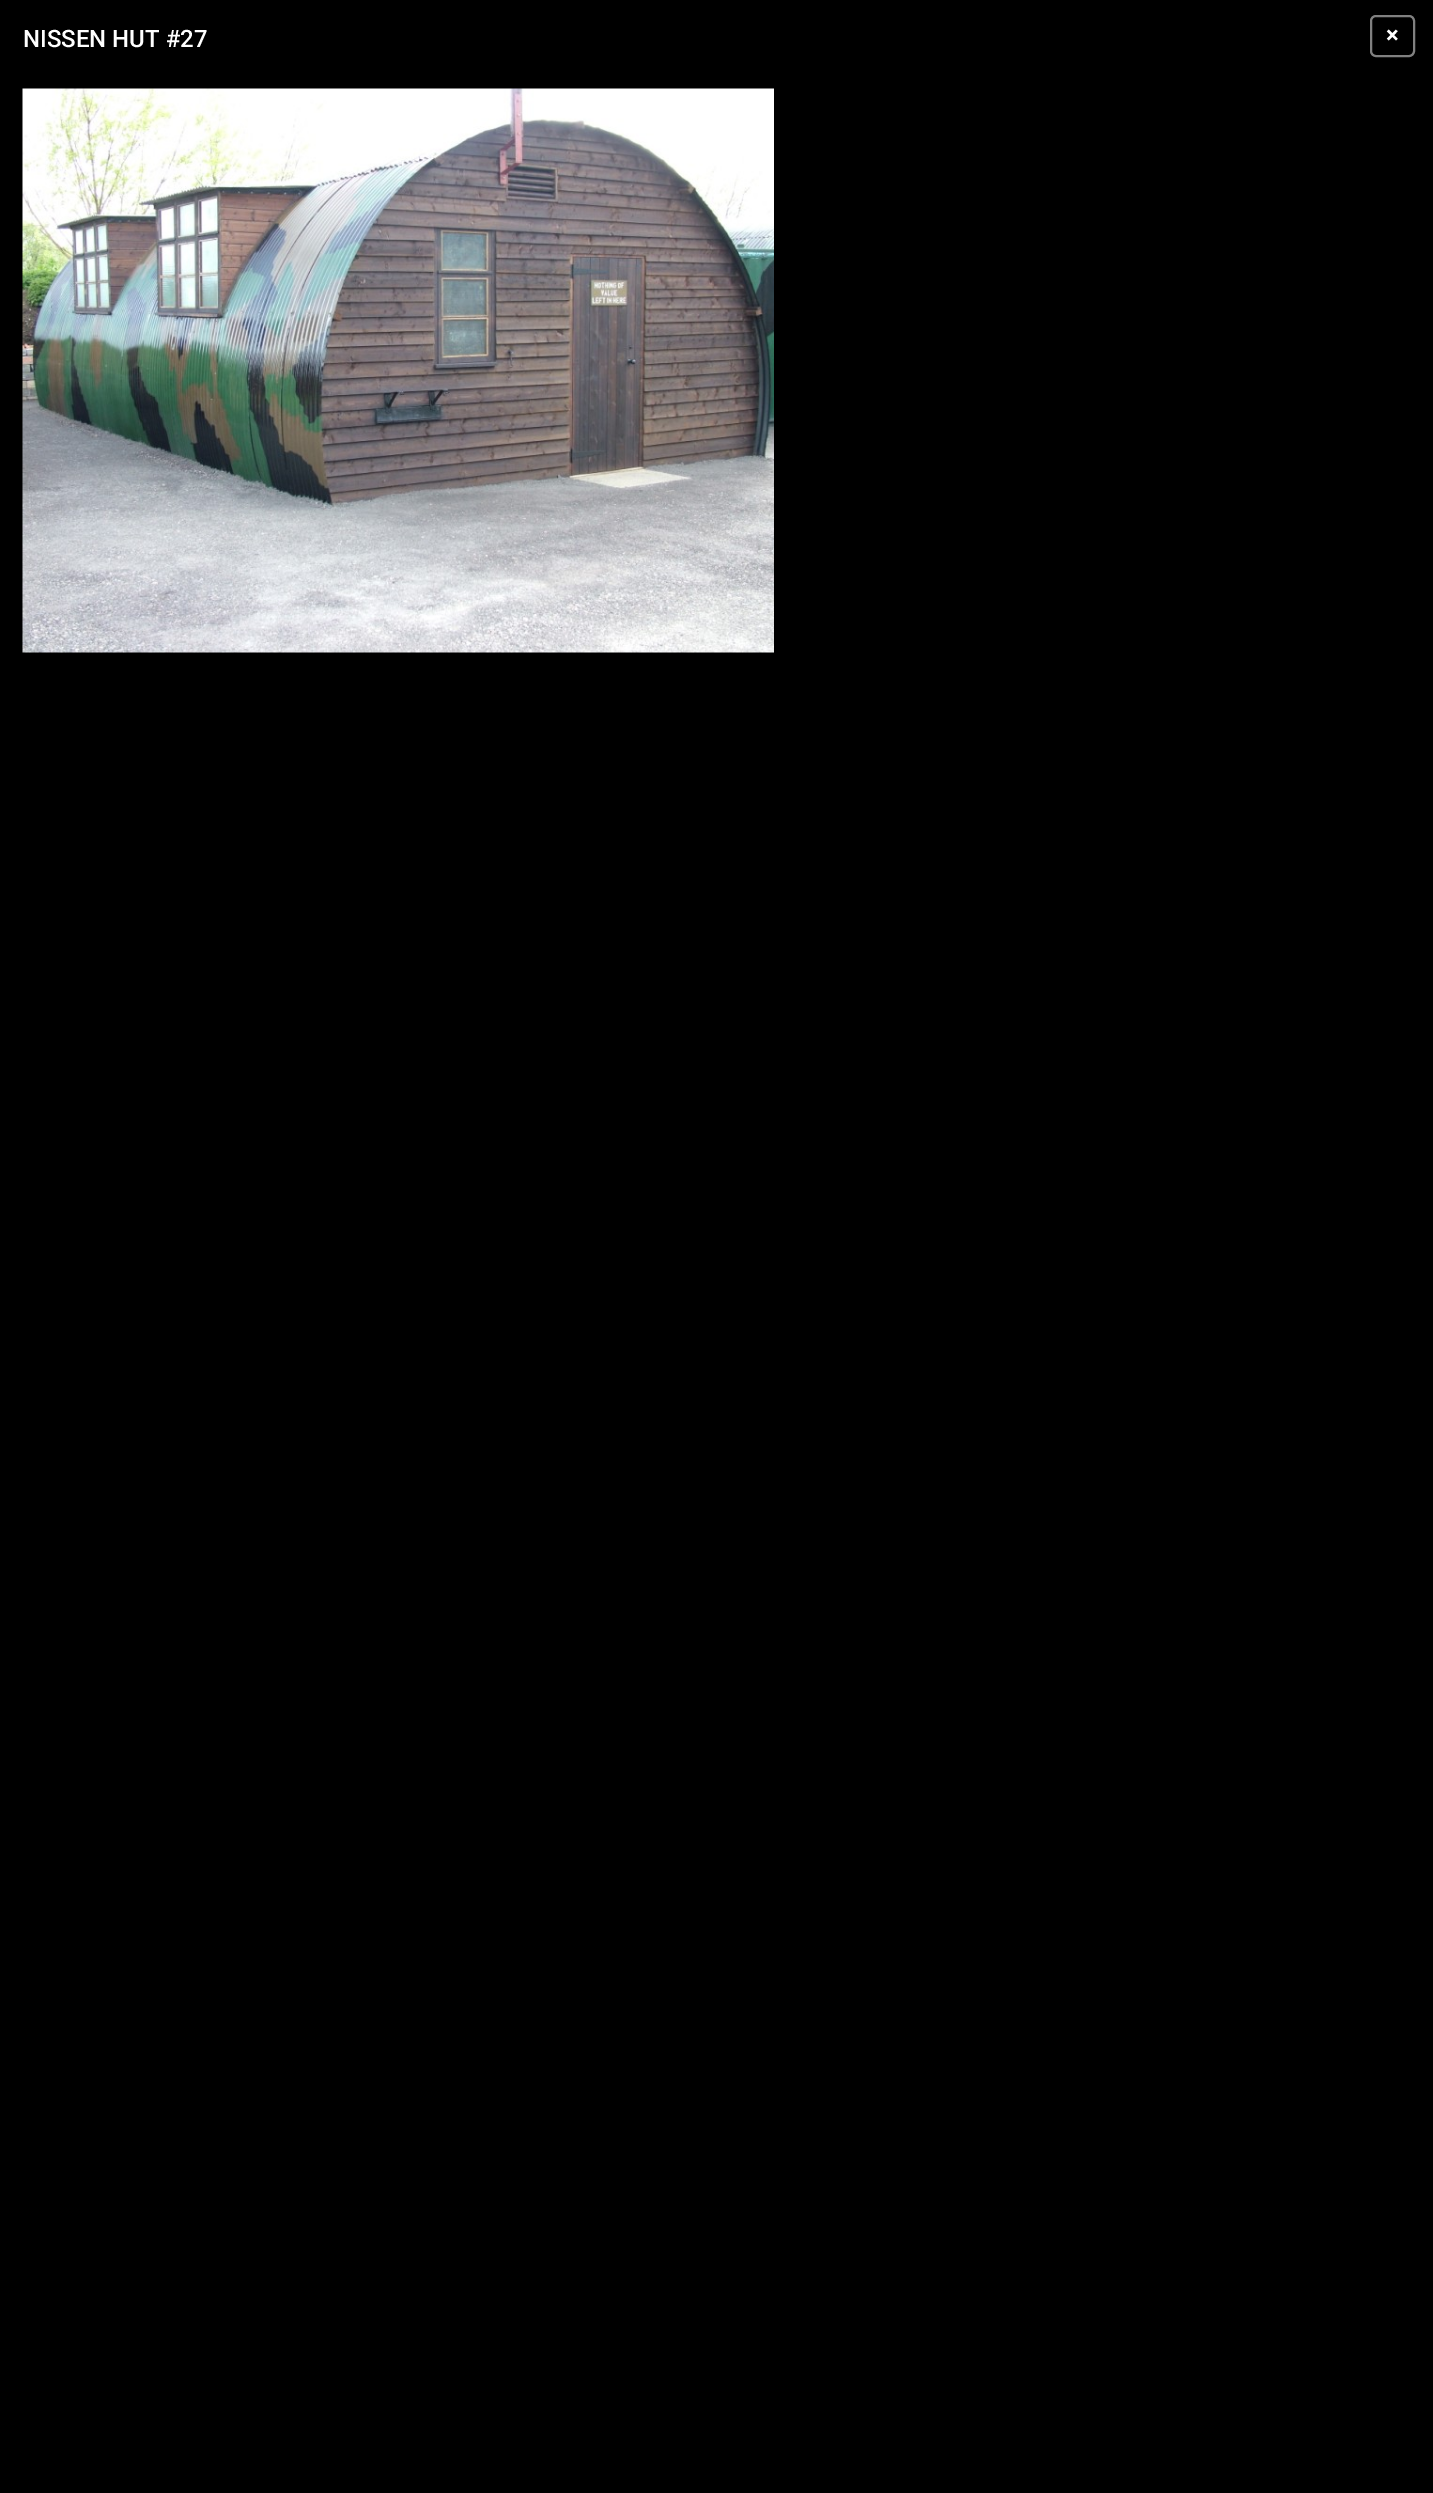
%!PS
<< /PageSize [1433 2493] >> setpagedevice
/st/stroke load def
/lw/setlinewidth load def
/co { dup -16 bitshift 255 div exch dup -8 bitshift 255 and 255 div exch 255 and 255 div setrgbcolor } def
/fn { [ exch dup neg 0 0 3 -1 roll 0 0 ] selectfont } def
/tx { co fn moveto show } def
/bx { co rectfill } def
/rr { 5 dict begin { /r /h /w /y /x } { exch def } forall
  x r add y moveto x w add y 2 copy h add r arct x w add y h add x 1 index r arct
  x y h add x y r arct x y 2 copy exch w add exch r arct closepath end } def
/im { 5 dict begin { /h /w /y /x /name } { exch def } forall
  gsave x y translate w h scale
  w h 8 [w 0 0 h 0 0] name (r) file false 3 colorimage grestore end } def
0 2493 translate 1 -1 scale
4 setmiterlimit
0 0 1433 2493 16#000000 bx
(media/1.raw) 22 88 752 565 im
16#808080 co
2 lw
1371 16 43 40 5 rr st
(NISSEN HUT #27) 23 47 /Roboto-Medium 24 16#FFFFFF tx
(×) 1386 43 /Roboto-Bold 24 16#FFFFFF tx
showpage
